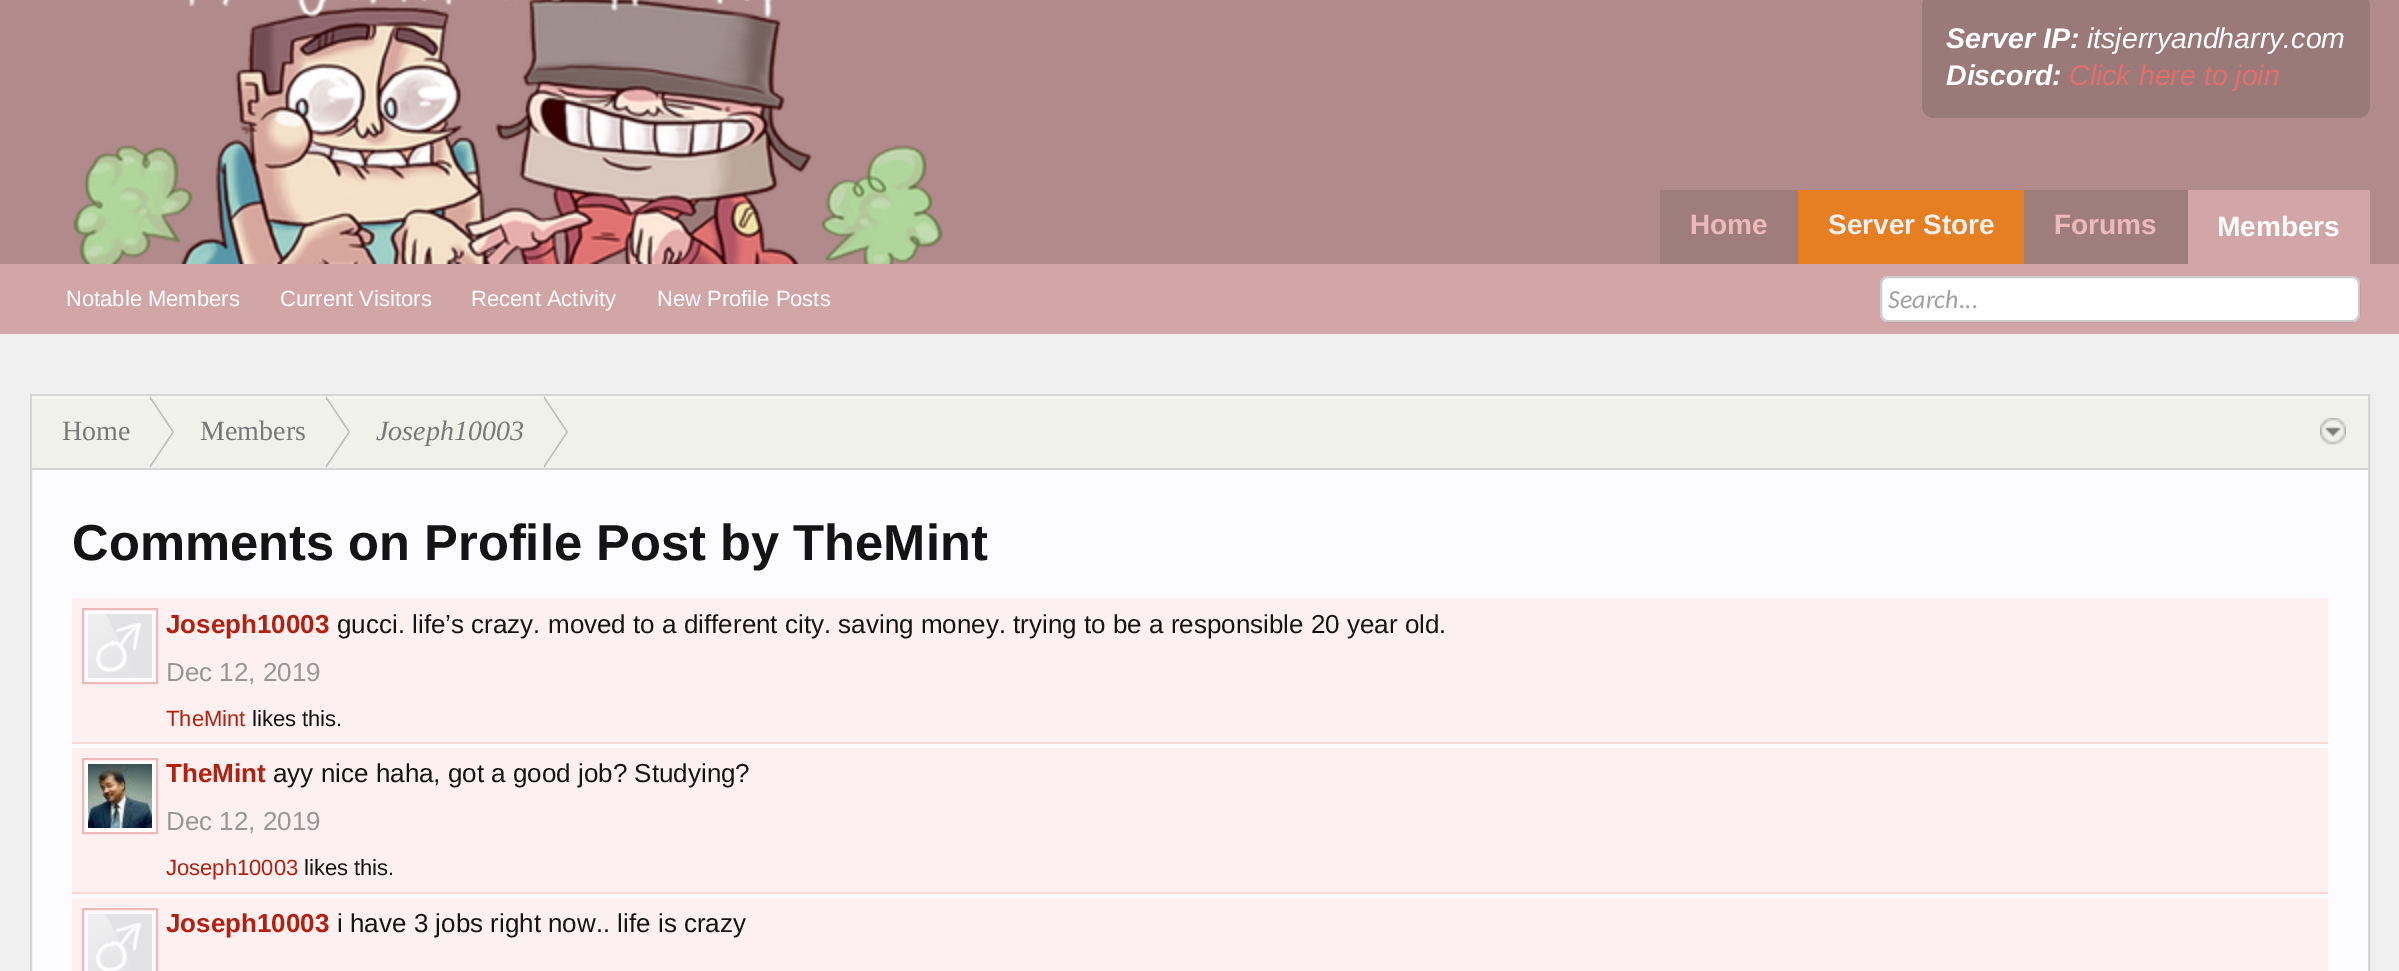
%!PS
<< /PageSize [2399 971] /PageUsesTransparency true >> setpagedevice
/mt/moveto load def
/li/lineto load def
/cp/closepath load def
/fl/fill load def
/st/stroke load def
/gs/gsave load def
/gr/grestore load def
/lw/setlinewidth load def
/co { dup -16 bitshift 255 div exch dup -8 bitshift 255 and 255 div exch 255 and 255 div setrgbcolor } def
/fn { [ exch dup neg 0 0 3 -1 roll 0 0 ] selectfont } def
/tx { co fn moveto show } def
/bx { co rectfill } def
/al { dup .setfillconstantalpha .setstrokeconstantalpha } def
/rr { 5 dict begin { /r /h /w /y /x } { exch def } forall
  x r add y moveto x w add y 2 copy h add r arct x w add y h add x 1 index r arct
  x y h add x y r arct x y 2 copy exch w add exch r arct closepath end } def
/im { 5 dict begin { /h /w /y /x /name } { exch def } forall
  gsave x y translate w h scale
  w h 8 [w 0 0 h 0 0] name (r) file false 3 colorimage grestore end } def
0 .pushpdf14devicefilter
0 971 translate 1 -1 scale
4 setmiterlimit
0 0 2399 971 16#F0F0F0 bx
0 0 2399 264 16#B18B8B bx
(media/1.raw) 73 0 870 264 im
16#9A7979 co
1922 -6 448 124 12 rr fl
1660 190 528 74 16#9F7D7D bx
1798 190 226 74 16#E67E22 bx
2188 190 182 74 16#D2A6A6 bx
0 264 2399 70 16#D2A6A6 bx
16#FFFFFF co
1880 276 480 46 8 rr fl
0.2 al
16#000000 co
2 lw
1881 277 478 44 7 rr st
1 al
32 470 2336 501 16#FCFCFF bx
16#D5D5D5 co
31 395 2338 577 rectstroke
32 399 2336 69 16#F1F1EC bx
32 396 2336 3 16#F6F6F3 bx
32 468 2336 2 16#D5D5D5 bx
16#BEBEBE co
150 468 mt 150 396 li 174 432 li cp fl
16#F1F1EC co
148 468 mt 148 396 li 172 432 li cp fl
16#BEBEBE co
326 468 mt 326 396 li 350 432 li cp fl
16#F1F1EC co
324 468 mt 324 396 li 348 432 li cp fl
16#BEBEBE co
544 468 mt 544 396 li 568 432 li cp fl
16#F1F1EC co
542 468 mt 542 396 li 566 432 li cp fl
(media/2.raw) 2320 418 26 27 im
72 598 2256 144 16#FCF1F0 bx
72 742 2256 2 16#FCD9D7 bx
16#FCFCFF co
83 609 mt 157 609 li 157 683 li 83 683 li cp gs fl gr
16#EEBAB9 co
st
(media/3.raw) 88 614 64 64 im
72 748 2256 144 16#FCF1F0 bx
72 892 2256 2 16#FCD9D7 bx
16#FCFCFF co
83 759 mt 157 759 li 157 833 li 83 833 li cp gs fl gr
16#EEBAB9 co
st
(media/4.raw) 88 764 64 64 im
72 898 2256 73 16#FCF1F0 bx
16#FCFCFF co
83 909 mt 157 909 li 157 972 li 83 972 li cp gs fl gr
16#EEBAB9 co
st
(media/5.raw) 88 914 64 57 im
(Server IP:) 1946 48 /LiberationSans-BoldItalic 28.5 16#FFFFFF tx
(itsjerryandharry.com) 2087 48 /LiberationSans-Italic 28.5 16#FFFFFF tx
(Discord:) 1946 85 /LiberationSans-BoldItalic 28.5 16#FFFFFF tx
(Click here to join) 2069 85 /LiberationSans-Italic 28.5 16#E46E6C tx
(Home) 1690 234 /LiberationSans-Bold 28 16#EEBAB9 tx
(Server Store) 1828 234 /LiberationSans-Bold 28 16#F0F0F0 tx
(Forums) 2054 234 /LiberationSans-Bold 28 16#EEBAB9 tx
(Members) 2217 236 /LiberationSans-Bold 28 16#FFFFFF tx
(Notable Members) 66 306 /LiberationSans-Regular 22 16#FFFFFF tx
(Current Visitors) 280 306 /LiberationSans-Regular 22 16#FFFFFF tx
(Recent Activity) 471 306 /LiberationSans-Regular 22 16#FFFFFF tx
(New Profile Posts) 657 306 /LiberationSans-Regular 22 16#FFFFFF tx
(Search...) 1888 308 /Carlito-Italic 26 16#A0A0A0 tx
(Home) 62 440 /LiberationSerif-Regular 28 16#777777 tx
(Members) 200 440 /LiberationSerif-Regular 28 16#777777 tx
(Joseph10003) 376 440 /LiberationSerif-Italic 28 16#777777 tx
(Comments on Profile Post by TheMint) 72 560 /LiberationSans-Bold 50.7 16#141414 tx
(Joseph10003) 166 633 /LiberationSans-Bold 26 16#B32010 tx
(gucci. life’s crazy. moved to a different city. saving money. trying to be a responsible 20 year old.) 337 633 /LiberationSans-Regular 26 16#141414 tx
(Dec 12, 2019) 166 681 /LiberationSans-Regular 26 16#969696 tx
(TheMint) 166 726 /LiberationSans-Regular 22 16#B32010 tx
(likes this.) 252 726 /LiberationSans-Regular 22 16#141414 tx
(TheMint) 166 782 /LiberationSans-Bold 26 16#B32010 tx
(ayy nice haha, got a good job? Studying?) 273 782 /LiberationSans-Regular 26 16#141414 tx
(Dec 12, 2019) 166 830 /LiberationSans-Regular 26 16#969696 tx
(Joseph10003) 166 875 /LiberationSans-Regular 22 16#B32010 tx
(likes this.) 304 875 /LiberationSans-Regular 22 16#141414 tx
(Joseph10003) 166 932 /LiberationSans-Bold 26 16#B32010 tx
(i have 3 jobs right now.. life is crazy) 337 932 /LiberationSans-Regular 26 16#141414 tx
.poppdf14devicefilter showpage
